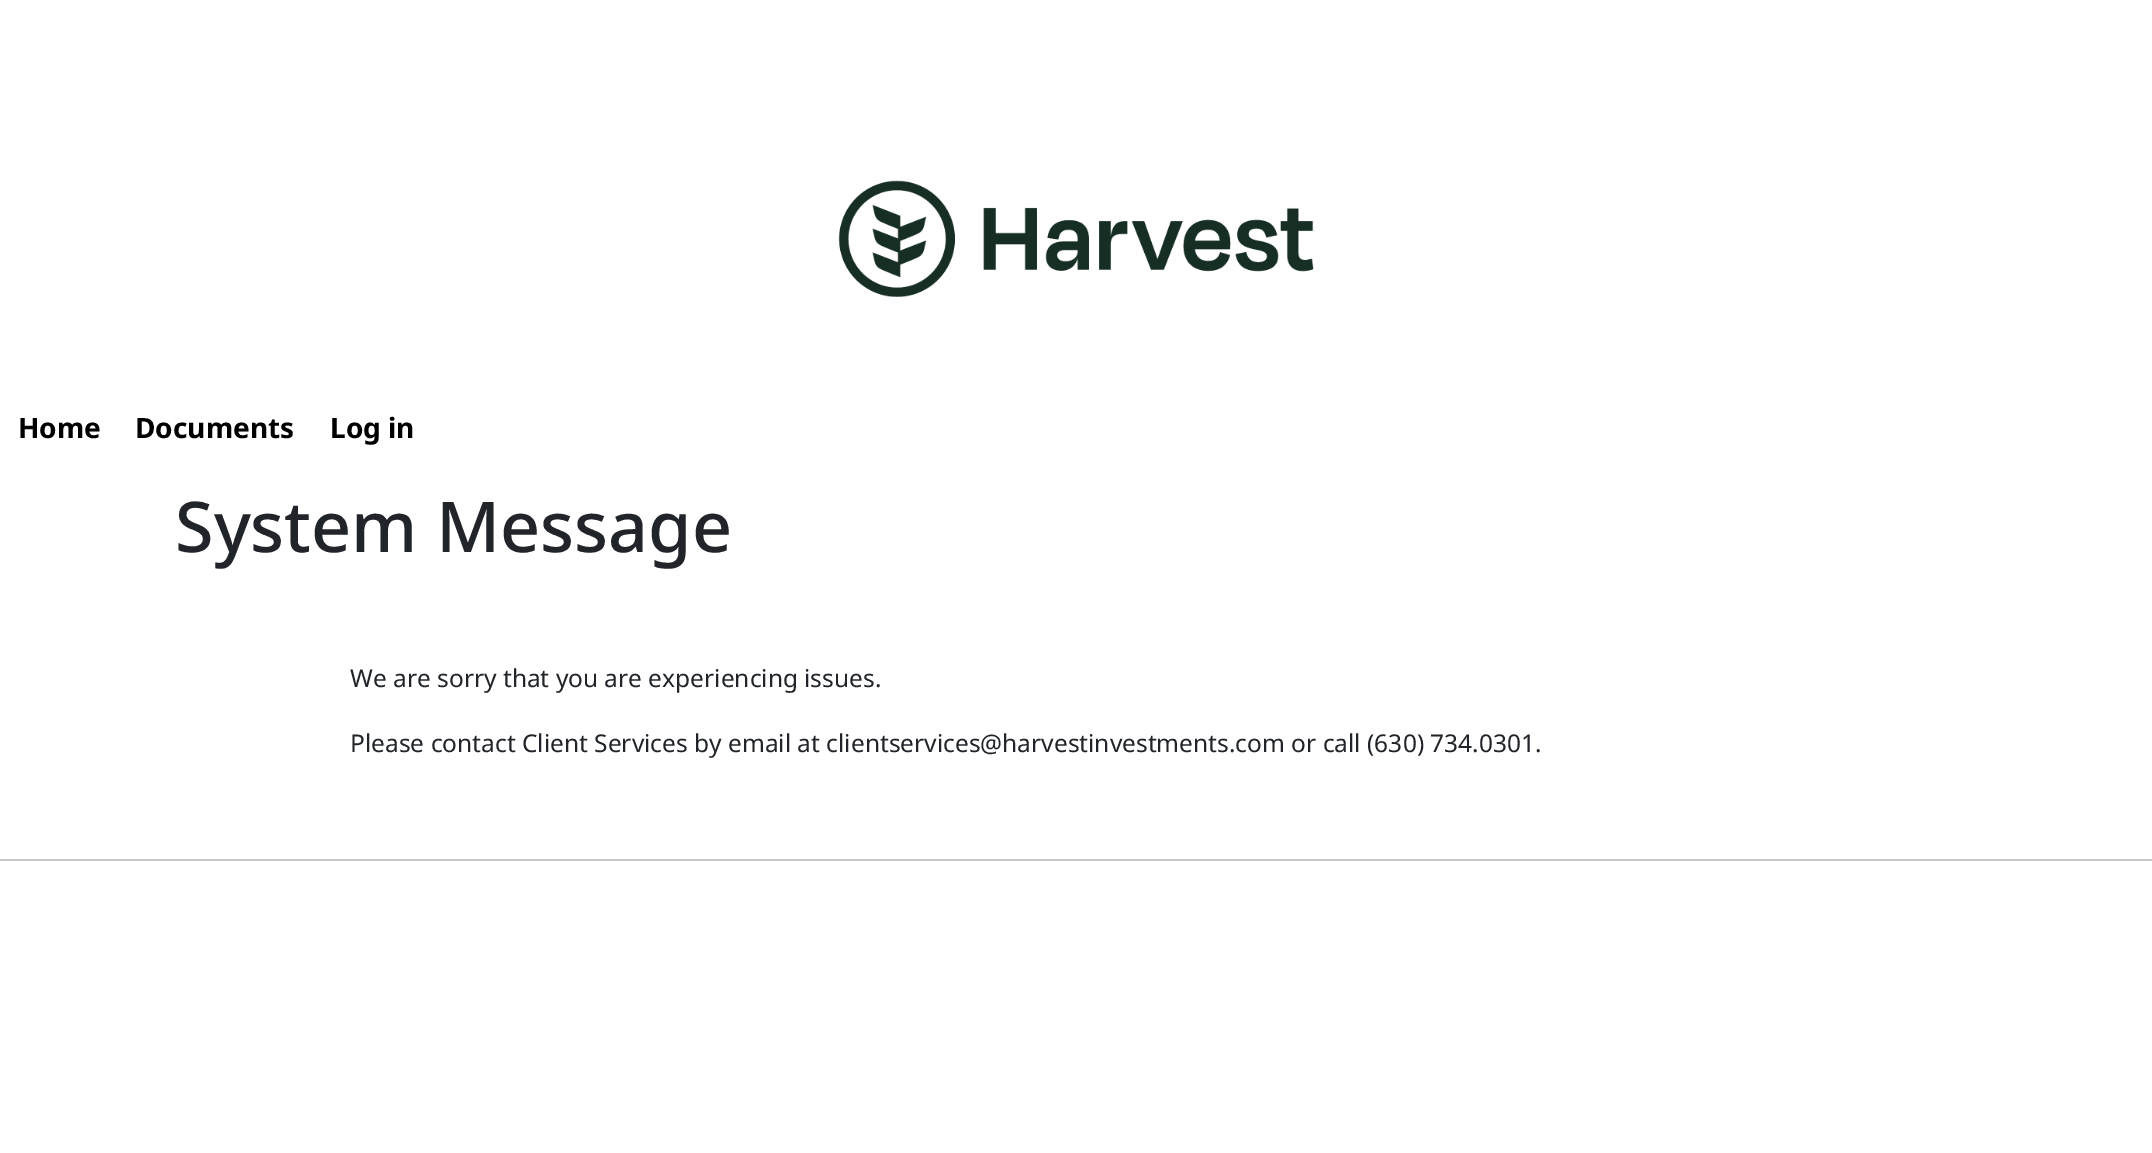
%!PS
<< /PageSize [2152 1153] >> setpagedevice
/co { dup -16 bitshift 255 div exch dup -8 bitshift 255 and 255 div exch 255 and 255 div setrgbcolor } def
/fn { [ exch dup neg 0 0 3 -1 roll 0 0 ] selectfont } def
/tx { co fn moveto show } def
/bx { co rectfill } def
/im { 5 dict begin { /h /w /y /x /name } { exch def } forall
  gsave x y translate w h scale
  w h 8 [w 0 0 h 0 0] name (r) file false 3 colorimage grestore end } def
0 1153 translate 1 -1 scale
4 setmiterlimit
0 0 2152 1153 16#FFFFFF bx
(media/1.raw) 838 180 476 117 im
0 859 2152 2 16#C8C9CA bx
(Home) 18 438 /NotoSans-Bold 28 16#000000 tx
(Documents) 135 438 /NotoSans-Bold 28 16#000000 tx
(Log in) 330 438 /NotoSans-Bold 28 16#000000 tx
(System Message) 175 552 /NotoSans-Medium 70 16#212529 tx
(We are sorry that you are experiencing issues.) 350 687 /NotoSans-Regular 24.5 16#212529 tx
(Please contact Client Services by email at clientservices@harvestinvestments.com or call \(630\) 734.0301.) 350 752 /NotoSans-Regular 24.5 16#212529 tx
showpage
